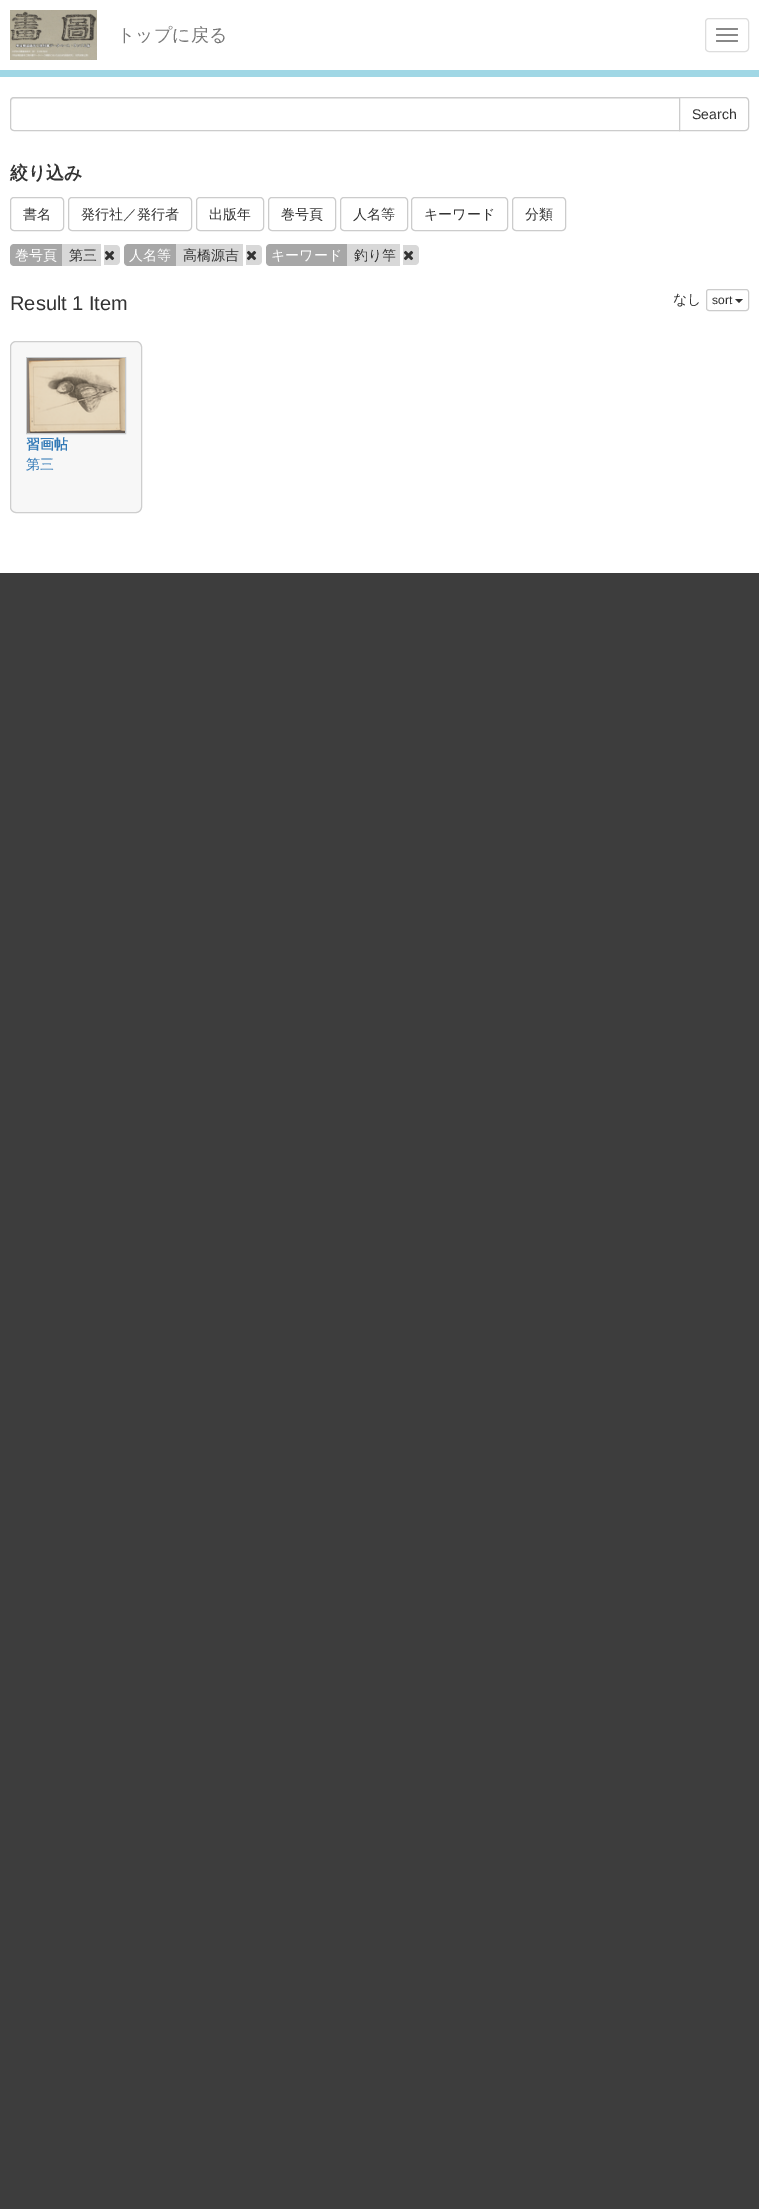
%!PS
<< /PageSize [759 2209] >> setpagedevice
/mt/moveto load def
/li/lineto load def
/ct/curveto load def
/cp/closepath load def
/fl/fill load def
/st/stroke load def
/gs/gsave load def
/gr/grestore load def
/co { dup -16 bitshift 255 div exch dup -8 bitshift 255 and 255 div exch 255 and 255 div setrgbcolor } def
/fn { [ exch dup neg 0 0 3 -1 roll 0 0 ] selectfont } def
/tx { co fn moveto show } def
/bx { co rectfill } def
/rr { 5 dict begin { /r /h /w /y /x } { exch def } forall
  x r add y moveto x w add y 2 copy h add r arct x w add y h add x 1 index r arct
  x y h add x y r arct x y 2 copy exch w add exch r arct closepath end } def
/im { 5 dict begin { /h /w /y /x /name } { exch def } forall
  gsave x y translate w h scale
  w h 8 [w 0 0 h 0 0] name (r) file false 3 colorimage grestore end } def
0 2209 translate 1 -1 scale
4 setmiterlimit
0 0 759 2209 16#3D3D3D bx
0 0 759 70 16#FFFFFF bx
0 70 759 7 16#A0D7E5 bx
(media/1.raw) 10 10 87 50 im
16#DDDDDD co
705.5 18.5 43 33 3.5 rr st
16#888888 co
716 28 22 2 1 rr fl
716 34 22 2 1 rr fl
716 40 22 2 1 rr fl
0 77 759 496 16#FFFFFF bx
16#ECECEC co
14 99 mt 679 99 li 679 98 li 14 98 li 12 98 11 99 11 101 ct 11 102 li 11 100 12 99 14 99 ct cp fl
16#CCCCCC co
14 97.5 mt 679.5 97.5 li 679.5 130.5 li 14 130.5 li 12 130.5 10.5 129 10.5 127 ct 10.5 101 li 10.5 99 12 97.5 14 97.5 ct cp st
16#FFFFFF co
679.5 97.5 mt 745 97.5 li 747 97.5 748.5 99 748.5 101 ct 748.5 127 li 748.5 129 747 130.5 745 130.5 ct 679.5 130.5 li cp gs fl gr
16#CCCCCC co
st
10.5 197.5 53 33 3.5 rr st
68.5 197.5 123 33 3.5 rr st
196.5 197.5 67 33 3.5 rr st
268.5 197.5 67 33 3.5 rr st
340.5 197.5 67 33 3.5 rr st
411.5 197.5 96 33 3.5 rr st
512.5 197.5 53 33 3.5 rr st
16#A7A7A7 co
14 244 mt 62 244 li 62 266 li 14 266 li 12 266 10 264 10 262 ct 10 248 li 10 246 12 244 14 244 ct cp fl
62 244 39 22 16#D8D8D8 bx
104 245 mt 116 245 li 118 245 120 247 120 249 ct 120 261 li 120 263 118 265 116 265 ct 104 265 li cp fl
(media/2.raw) 104 250 11 11 im
16#A7A7A7 co
128 244 mt 176 244 li 176 266 li 128 266 li 126 266 124 264 124 262 ct 124 248 li 124 246 126 244 128 244 ct cp fl
176 244 67 22 16#D8D8D8 bx
246 245 mt 258 245 li 260 245 262 247 262 249 ct 262 261 li 262 263 260 265 258 265 ct 246 265 li cp fl
(media/2.raw) 246 250 11 11 im
16#A7A7A7 co
270 244 mt 347 244 li 347 266 li 270 266 li 268 266 266 264 266 262 ct 266 248 li 266 246 268 244 270 244 ct cp fl
347 244 53 22 16#D8D8D8 bx
403 245 mt 415 245 li 417 245 419 247 419 249 ct 419 261 li 419 263 417 265 415 265 ct 403 265 li cp fl
(media/2.raw) 403 250 11 11 im
16#CCCCCC co
706.5 289.5 42 21 2.5 rr st
16#333333 co
735 299 mt 743 299 li 739 303 li cp fl
16#F7F7F7 co
10.5 341.5 131 171 5.5 rr gs fl gr
16#CECECE co
st
16#C5C8CA co
26.5 357.5 99 76 rectstroke
(media/3.raw) 27 358 98 75 im
(トップに戻る) 117 41 /WenQuanYiZenHei-Medium 18 16#777777 tx
(Search) 692 119 /LiberationSans-Regular 14 16#333333 tx
(絞り込み) 10 179 /WenQuanYiZenHei-Bold 18 16#333333 tx
(書名) 23 219 /WenQuanYiZenHei-Medium 14 16#333333 tx
(発行社／発行者) 81 219 /WenQuanYiZenHei-Medium 14 16#333333 tx
(出版年) 209 219 /WenQuanYiZenHei-Medium 14 16#333333 tx
(巻号頁) 281 219 /WenQuanYiZenHei-Medium 14 16#333333 tx
(人名等) 353 219 /WenQuanYiZenHei-Medium 14 16#333333 tx
(キーワード) 424 219 /WenQuanYiZenHei-Medium 14 16#333333 tx
(分類) 525 219 /WenQuanYiZenHei-Medium 14 16#333333 tx
(巻号頁) 15 260 /WenQuanYiZenHei-Medium 14 16#FFFFFF tx
(第三) 69 260 /WenQuanYiZenHei-Medium 14 16#333333 tx
(人名等) 129 260 /WenQuanYiZenHei-Medium 14 16#FFFFFF tx
(高橋源吉) 183 260 /WenQuanYiZenHei-Medium 14 16#333333 tx
(キーワード) 271 260 /WenQuanYiZenHei-Medium 14 16#FFFFFF tx
(釣り竿) 354 260 /WenQuanYiZenHei-Medium 14 16#333333 tx
(Result 1 Item) 10 310 /LiberationSans-Regular 20 16#333333 tx
(なし) 673 304 /WenQuanYiZenHei-Medium 14 16#333333 tx
(sort) 712 304 /LiberationSans-Regular 12 16#333333 tx
(習画帖) 26 449 /WenQuanYiZenHei-Bold 14 16#337AB7 tx
(第三) 26 469 /WenQuanYiZenHei-Medium 14 16#337AB7 tx
showpage
